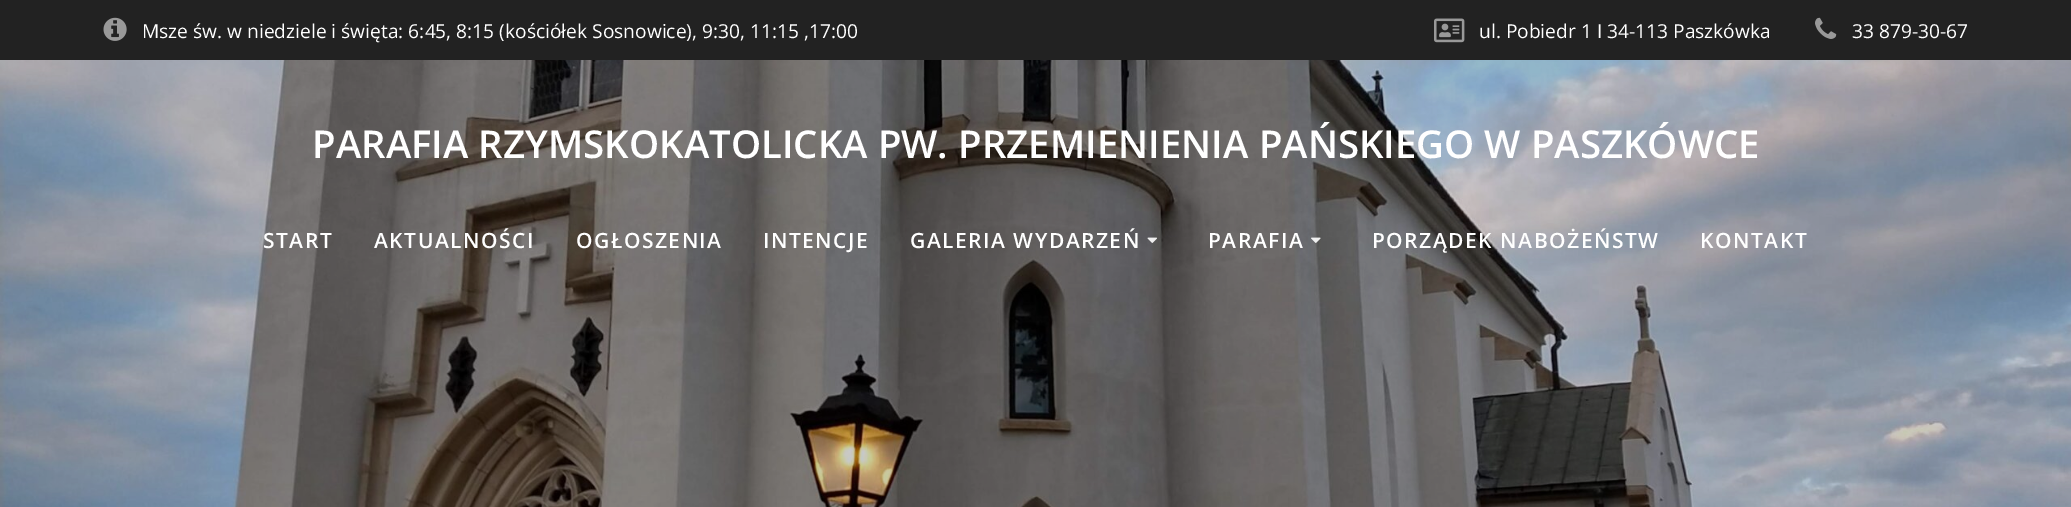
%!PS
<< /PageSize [2071 507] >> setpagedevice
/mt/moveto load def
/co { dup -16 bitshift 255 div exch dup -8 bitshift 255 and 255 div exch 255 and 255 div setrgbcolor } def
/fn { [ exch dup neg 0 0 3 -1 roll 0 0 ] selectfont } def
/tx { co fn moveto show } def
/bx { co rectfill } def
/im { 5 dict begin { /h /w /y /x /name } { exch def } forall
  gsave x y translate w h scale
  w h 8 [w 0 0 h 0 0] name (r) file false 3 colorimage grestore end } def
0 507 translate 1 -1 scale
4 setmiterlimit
0 0 2071 507 16#FFFFFF bx
0 0 2071 60 16#222222 bx
(media/1.raw) 103 17 24 24 im
(media/2.raw) 1434 18 31 25 im
(media/3.raw) 1815 17 22 22 im
(media/6.raw) 0 60 2071 447 im
(media/4.raw) 1147 237 10 6 im
(media/5.raw) 1311 237 10 6 im
(Msze św. w niedziele i święta: 6:45, 8:15 \(kościółek Sosnowice\), 9:30, 11:15 ,17:00) 142 38 /OpenSans-Regular 19.2 16#FFFFFF tx
(ul. Pobiedr 1 I 34-113 Paszkówka) 1479 38 /OpenSans-Regular 19.2 16#FFFFFF tx
(33 879-30-67) 1852 38 /OpenSans-Regular 19.2 16#FFFFFF tx
(PARAFIA RZYMSKOKATOLICKA PW. PRZEMIENIENIA PAŃSKIEGO W PASZKÓWCE) 312 158 /OpenSans-SemiBold 38.4 16#FFFFFF tx
/OpenSans-SemiBold 21 fn
263 248 mt 1.5 0 (START) ashow
374 248 mt 1.5 0 (AKTUALNOŚCI) ashow
576 248 mt 1.5 0 (OGŁOSZENIA) ashow
763 248 mt 1.5 0 (INTENCJE) ashow
910 248 mt 1.5 0 (GALERIA WYDARZEŃ) ashow
1208 248 mt 1.5 0 (PARAFIA) ashow
1372 248 mt 1.5 0 (PORZĄDEK NABOŻEŃSTW) ashow
1700 248 mt 1.5 0 (KONTAKT) ashow
showpage
